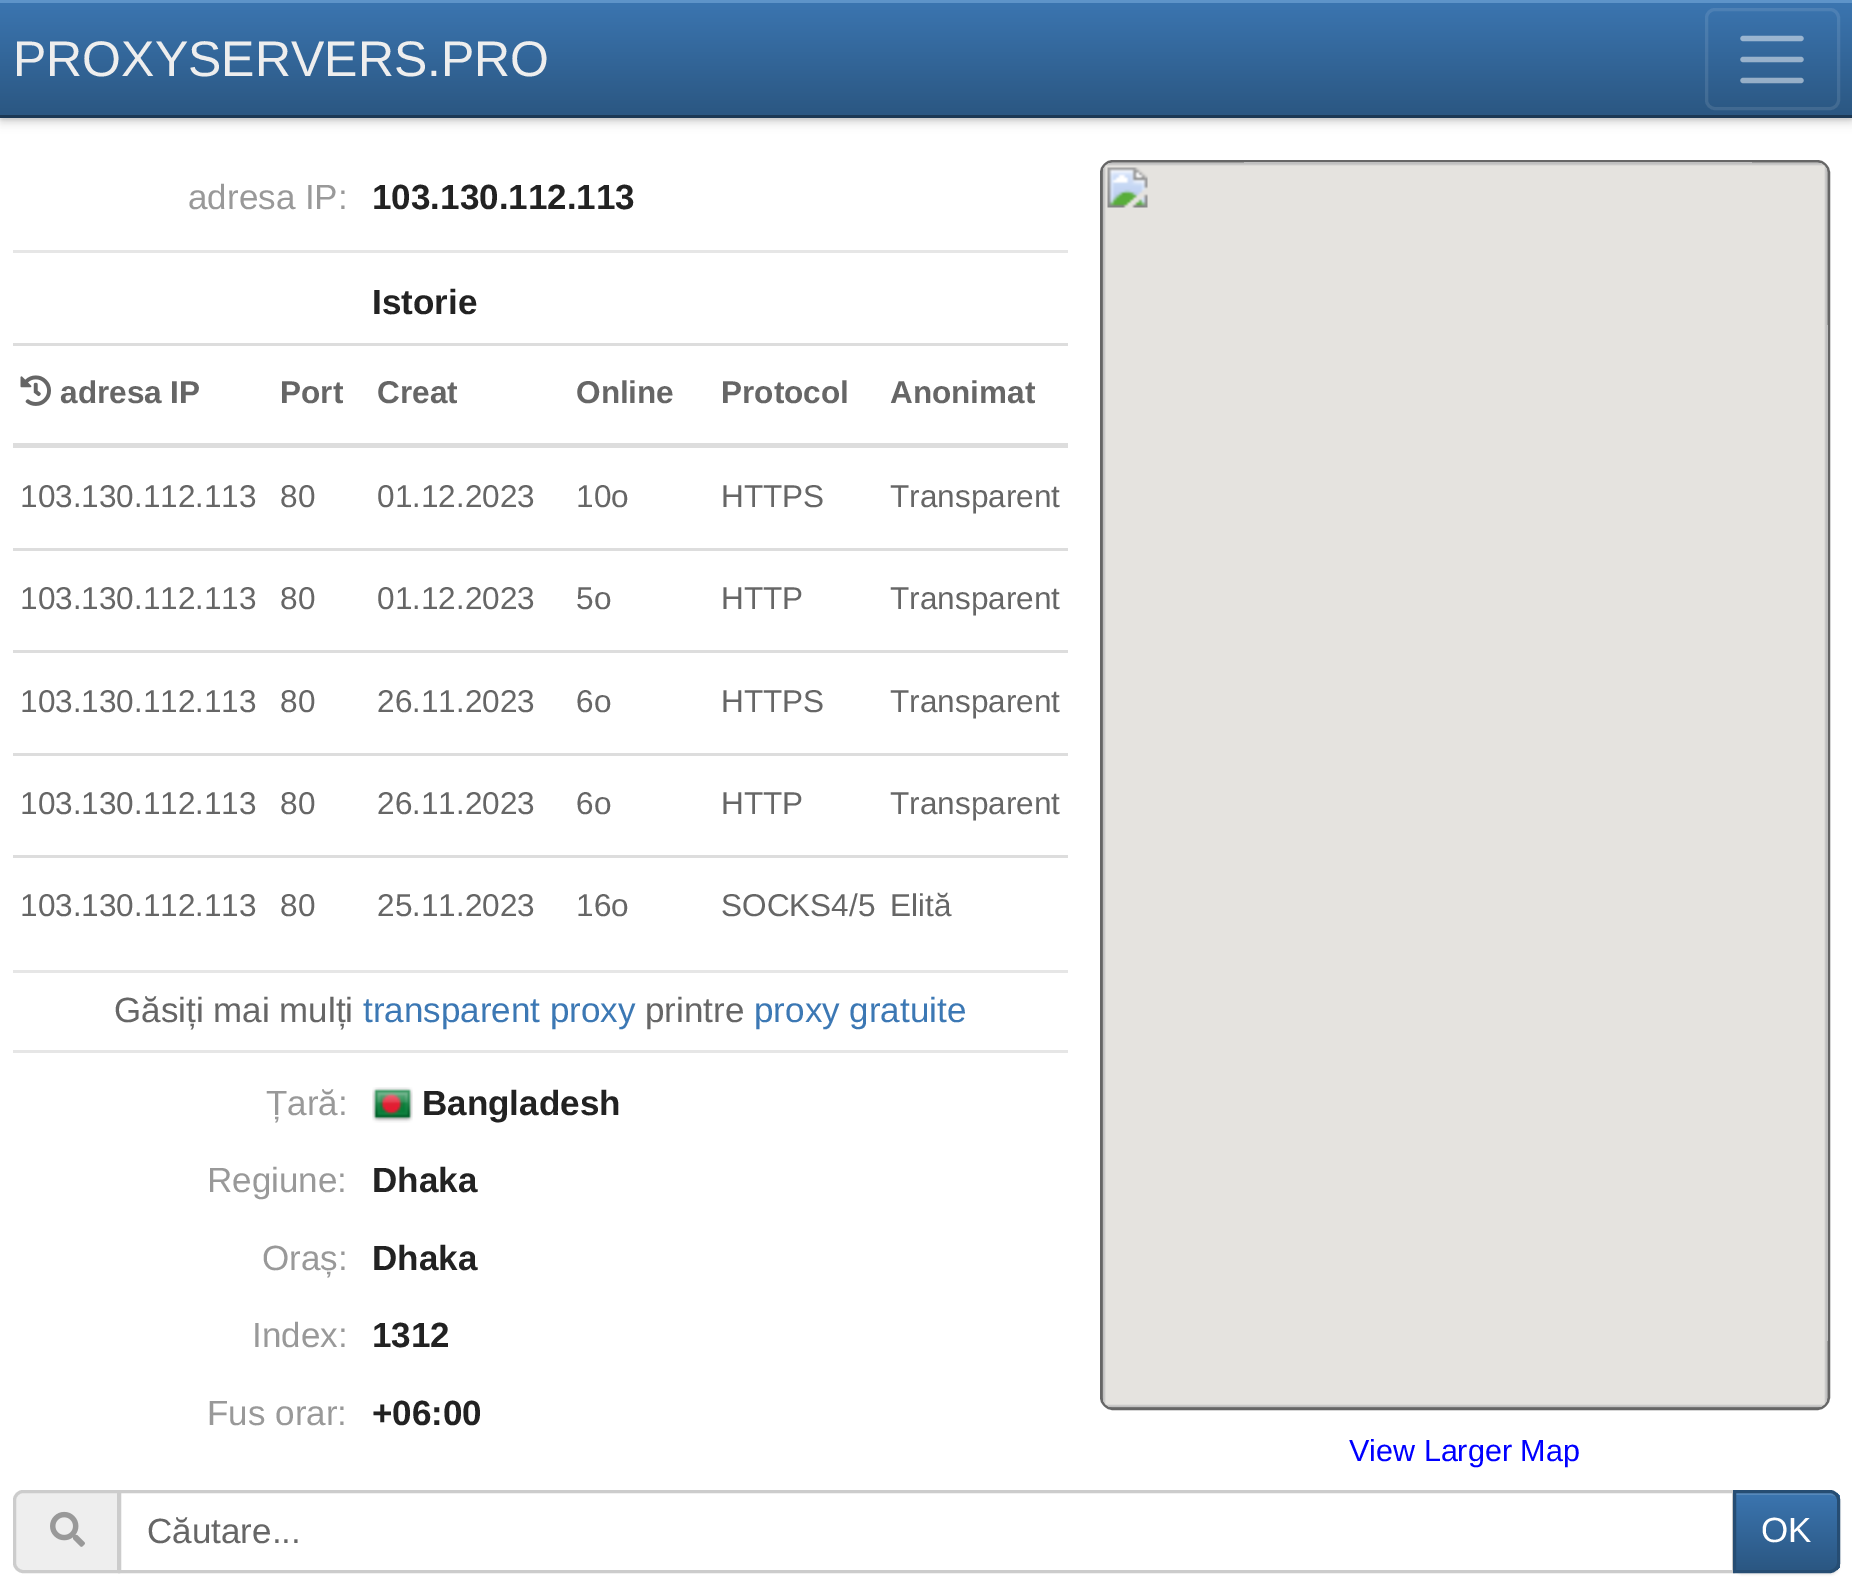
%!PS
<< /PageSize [1852 1587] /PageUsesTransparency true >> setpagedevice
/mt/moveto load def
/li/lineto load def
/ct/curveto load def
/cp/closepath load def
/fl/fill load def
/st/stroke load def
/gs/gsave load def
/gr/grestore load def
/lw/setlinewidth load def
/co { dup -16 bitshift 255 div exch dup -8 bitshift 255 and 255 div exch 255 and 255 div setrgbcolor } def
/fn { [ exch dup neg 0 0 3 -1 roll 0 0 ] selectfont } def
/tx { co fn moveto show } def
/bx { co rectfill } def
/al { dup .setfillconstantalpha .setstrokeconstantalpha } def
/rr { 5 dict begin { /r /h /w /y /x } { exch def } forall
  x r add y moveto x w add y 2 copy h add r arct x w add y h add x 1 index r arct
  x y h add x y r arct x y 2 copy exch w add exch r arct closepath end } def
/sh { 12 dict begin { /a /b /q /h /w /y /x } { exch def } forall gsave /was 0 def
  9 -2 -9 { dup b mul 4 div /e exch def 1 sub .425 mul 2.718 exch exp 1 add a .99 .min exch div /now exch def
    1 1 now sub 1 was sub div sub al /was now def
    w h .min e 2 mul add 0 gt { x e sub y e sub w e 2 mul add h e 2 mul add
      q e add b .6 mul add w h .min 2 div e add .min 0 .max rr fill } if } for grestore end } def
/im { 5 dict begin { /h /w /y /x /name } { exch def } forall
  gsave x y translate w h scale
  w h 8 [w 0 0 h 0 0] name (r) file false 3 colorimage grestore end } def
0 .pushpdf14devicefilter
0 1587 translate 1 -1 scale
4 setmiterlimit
0 0 1852 1587 16#FFFFFF bx
16#000000 co
0 10 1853 118 0 5 .04 sh
0 5 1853 118 0 2.5 .08 sh
0 3 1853 117 0 1 .1 sh
gs 0 3 mt 1852 3 li 1852 115 li 0 115 li cp clip newpath
<< /ShadingType 2 /ColorSpace /DeviceRGB /Coords [926 2.5 926 115] /Extend [true true] /Function << /FunctionType 2 /Domain [0 1] /C0 [.231 .459 .69] /C1 [.169 .341 .51] /N 1 >> >> shfill gr
0 0 1852 3 16#5E94C9 bx
0 115 1852 3 16#1C3854 bx
0.1 al
16#FFFFFF co
3 lw
1706.5 9.5 132 99 8.5 rr st
0.5 al
5.2 lw
1 setlinecap
1743 38.5 mt 1801 38.5 li 1743 59.5 mt 1801 59.5 li 1743 80.5 mt 1801 80.5 li st
1 al
13 250 1055 3 16#E6E6E6 bx
(media/1.raw) 20 375 31 31 im
13 343 1055 3 16#DDDDDD bx
13 443 1055 5 16#DDDDDD bx
13 548 1055 3 16#DDDDDD bx
13 650 1055 3 16#DDDDDD bx
13 753 1055 3 16#DDDDDD bx
13 855 1055 3 16#DDDDDD bx
13 970 1055 3 16#E6E6E6 bx
13 1050 1055 3 16#E6E6E6 bx
(media/2.raw) 372 1087 41 36 im
16#666666 co
3 lw
0 setlinecap
1101.5 161.5 727 1247 11.5 rr st
(media/3.raw) 1102 162 726 1246 im
16#EEEEEE co
23 1491.5 mt 118.5 1491.5 li 118.5 1571.5 li 23 1571.5 li 18.5 1571.5 14.5 1567.5 14.5 1563 ct 14.5 1500 li 14.5 1495.5 18.5 1491.5 23 1491.5 ct cp gs fl gr
16#CCCCCC co
st
(media/4.raw) 50 1511 35 36 im
119.5 1491.5 1614 80 rectstroke
16#000000 co
1733 1493 107 82 10 1 .07 sh
gs
1733 1490 mt 1830 1490 li 1835.5 1490 1840 1494.5 1840 1500 ct 1840 1563 li 1840 1568.5 1835.5 1573 1830 1573 ct 1733 1573 li cp clip newpath
gs 1736 1493 mt 1840 1493 li 1840 1570 li 1736 1570 li cp clip newpath
<< /ShadingType 2 /ColorSpace /DeviceRGB /Coords [1786 1493 1786 1570] /Extend [true true] /Function << /FunctionType 2 /Domain [0 1] /C0 [.231 .459 .69] /C1 [.169 .341 .51] /N 1 >> >> shfill gr
gr
0.15 al
16#FFFFFF co
1735 1495 mt 1831 1495 li 1835 1495 1838 1498 1838 1501 ct 1838 1499 li 1838 1496 1835 1493 1832 1493 ct 1735 1493 li cp fl
1 al
16#264D73 co
1734.5 1491.5 mt 1830 1491.5 li 1834.5 1491.5 1838.5 1495.5 1838.5 1500 ct 1838.5 1563 li 1838.5 1567.5 1834.5 1571.5 1830 1571.5 ct 1734.5 1571.5 li cp st
(PROXYSERVERS.PRO) 13 76 /LiberationSans-Regular 50 16#EEEEEE tx
(adresa IP:) 188 209 /LiberationSans-Regular 35 16#999999 tx
(103.130.112.113) 372 209 /LiberationSans-Bold 35 16#222222 tx
(Istorie) 372 314 /LiberationSans-Bold 35 16#222222 tx
(adresa IP) 60 403 /LiberationSans-Bold 31.5 16#666666 tx
(Port) 280 403 /LiberationSans-Bold 31.5 16#666666 tx
(Creat) 377 403 /LiberationSans-Bold 31.5 16#666666 tx
(Online) 576 403 /LiberationSans-Bold 31.5 16#666666 tx
(Protocol) 721 403 /LiberationSans-Bold 31.5 16#666666 tx
(Anonimat) 890 403 /LiberationSans-Bold 31.5 16#666666 tx
(103.130.112.113) 20 507 /LiberationSans-Regular 31.5 16#666666 tx
(80) 280 507 /LiberationSans-Regular 31.5 16#666666 tx
(01.12.2023) 377 507 /LiberationSans-Regular 31.5 16#666666 tx
(10o) 576 507 /LiberationSans-Regular 31.5 16#666666 tx
(HTTPS) 721 507 /LiberationSans-Regular 31.5 16#666666 tx
(Transparent) 890 507 /LiberationSans-Regular 31.5 16#666666 tx
(103.130.112.113) 20 609 /LiberationSans-Regular 31.5 16#666666 tx
(80) 280 609 /LiberationSans-Regular 31.5 16#666666 tx
(01.12.2023) 377 609 /LiberationSans-Regular 31.5 16#666666 tx
(5o) 576 609 /LiberationSans-Regular 31.5 16#666666 tx
(HTTP) 721 609 /LiberationSans-Regular 31.5 16#666666 tx
(Transparent) 890 609 /LiberationSans-Regular 31.5 16#666666 tx
(103.130.112.113) 20 712 /LiberationSans-Regular 31.5 16#666666 tx
(80) 280 712 /LiberationSans-Regular 31.5 16#666666 tx
(26.11.2023) 377 712 /LiberationSans-Regular 31.5 16#666666 tx
(6o) 576 712 /LiberationSans-Regular 31.5 16#666666 tx
(HTTPS) 721 712 /LiberationSans-Regular 31.5 16#666666 tx
(Transparent) 890 712 /LiberationSans-Regular 31.5 16#666666 tx
(103.130.112.113) 20 814 /LiberationSans-Regular 31.5 16#666666 tx
(80) 280 814 /LiberationSans-Regular 31.5 16#666666 tx
(26.11.2023) 377 814 /LiberationSans-Regular 31.5 16#666666 tx
(6o) 576 814 /LiberationSans-Regular 31.5 16#666666 tx
(HTTP) 721 814 /LiberationSans-Regular 31.5 16#666666 tx
(Transparent) 890 814 /LiberationSans-Regular 31.5 16#666666 tx
(103.130.112.113) 20 916 /LiberationSans-Regular 31.5 16#666666 tx
(80) 280 916 /LiberationSans-Regular 31.5 16#666666 tx
(25.11.2023) 377 916 /LiberationSans-Regular 31.5 16#666666 tx
(16o) 576 916 /LiberationSans-Regular 31.5 16#666666 tx
(SOCKS4/5) 721 916 /LiberationSans-Regular 31.5 16#666666 tx
(Elită) 890 916 /LiberationSans-Regular 31.5 16#666666 tx
(Găsiți mai mulți) 114 1022 /LiberationSans-Regular 35 16#666666 tx
(transparent proxy) 363 1022 /LiberationSans-Regular 35 16#3C78B4 tx
(printre) 645 1022 /LiberationSans-Regular 35 16#666666 tx
(proxy gratuite) 754 1022 /LiberationSans-Regular 35 16#3C78B4 tx
(Țară:) 266 1115 /LiberationSans-Regular 35 16#999999 tx
(Bangladesh) 422 1115 /LiberationSans-Bold 35 16#222222 tx
(Regiune:) 207 1192 /LiberationSans-Regular 35 16#999999 tx
(Dhaka) 372 1192 /LiberationSans-Bold 35 16#222222 tx
(Oraș:) 262 1270 /LiberationSans-Regular 35 16#999999 tx
(Dhaka) 372 1270 /LiberationSans-Bold 35 16#222222 tx
(Index:) 252 1347 /LiberationSans-Regular 35 16#999999 tx
(1312) 372 1347 /LiberationSans-Bold 35 16#222222 tx
(Fus orar:) 207 1425 /LiberationSans-Regular 35 16#999999 tx
(+06:00) 372 1425 /LiberationSans-Bold 35 16#222222 tx
(View Larger Map) 1349 1461 /LiberationSans-Regular 30.5 16#0000FF tx
(Căutare...) 147 1543 /LiberationSans-Regular 35 16#666666 tx
(OK) 1761 1542 /LiberationSans-Regular 35 16#FFFFFF tx
.poppdf14devicefilter showpage
